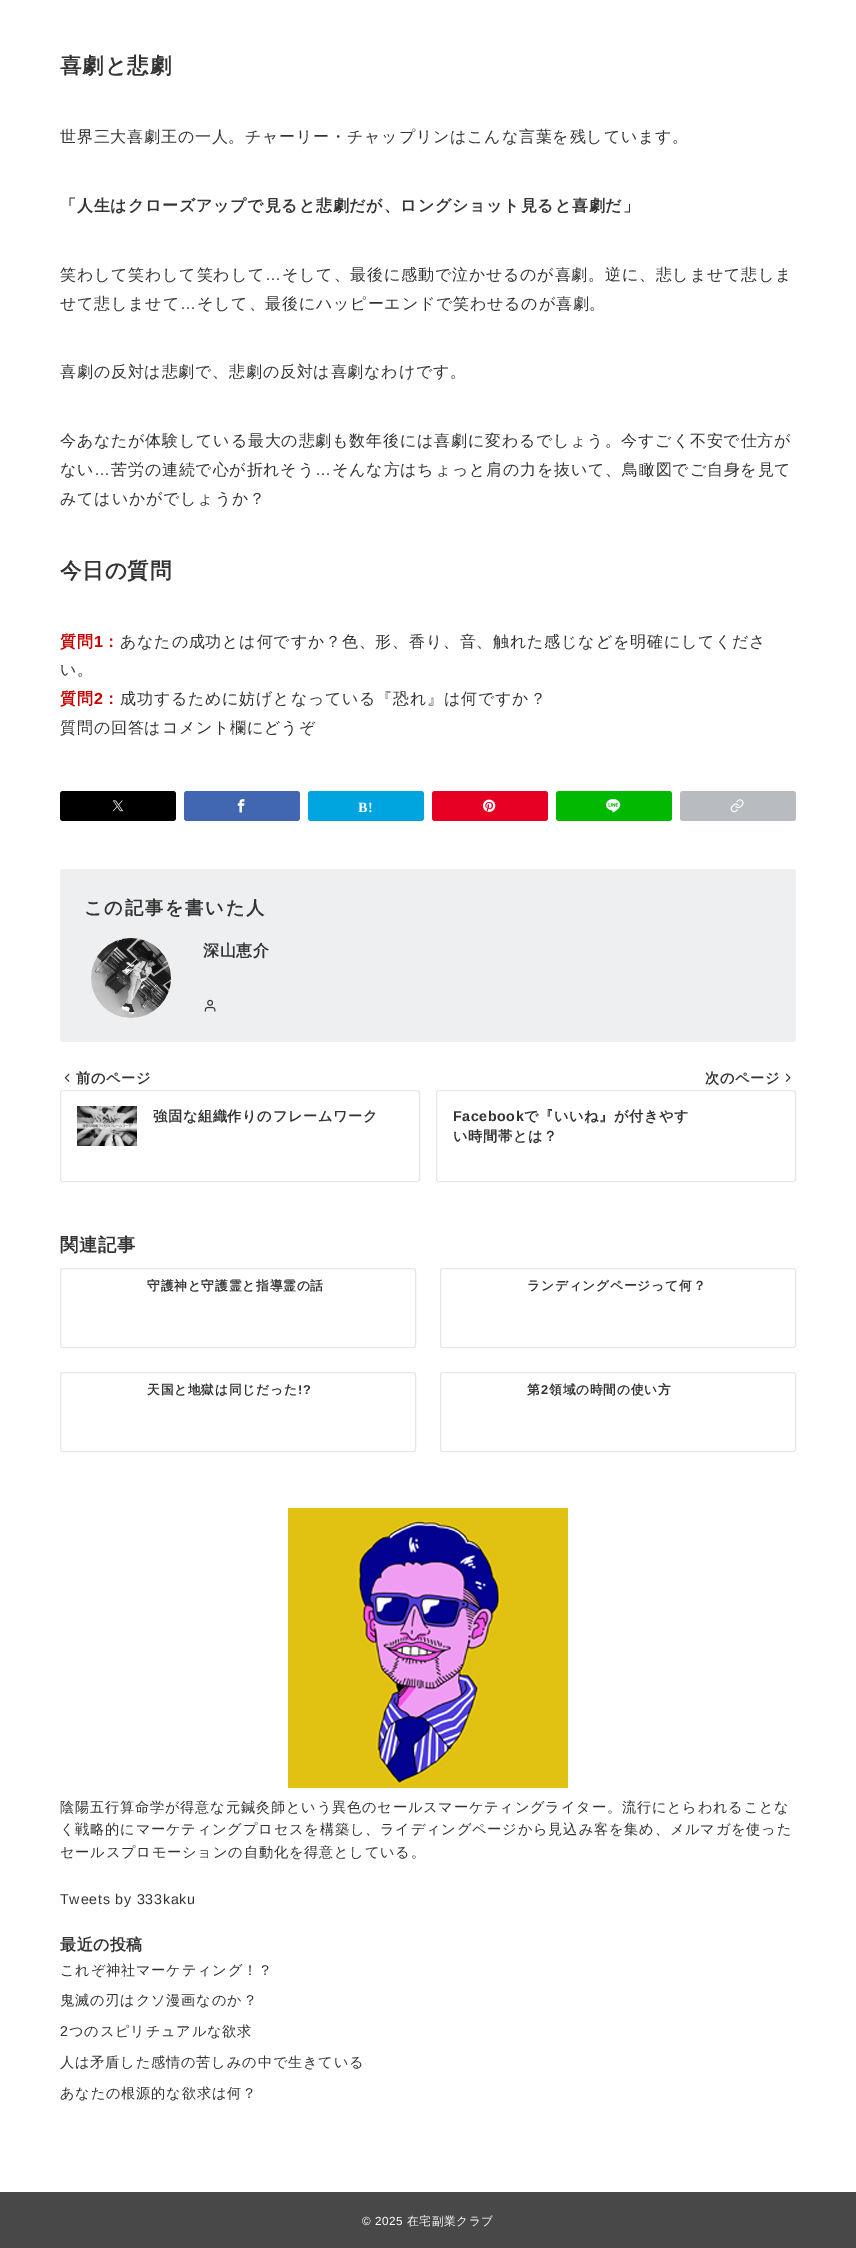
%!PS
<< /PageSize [856 2248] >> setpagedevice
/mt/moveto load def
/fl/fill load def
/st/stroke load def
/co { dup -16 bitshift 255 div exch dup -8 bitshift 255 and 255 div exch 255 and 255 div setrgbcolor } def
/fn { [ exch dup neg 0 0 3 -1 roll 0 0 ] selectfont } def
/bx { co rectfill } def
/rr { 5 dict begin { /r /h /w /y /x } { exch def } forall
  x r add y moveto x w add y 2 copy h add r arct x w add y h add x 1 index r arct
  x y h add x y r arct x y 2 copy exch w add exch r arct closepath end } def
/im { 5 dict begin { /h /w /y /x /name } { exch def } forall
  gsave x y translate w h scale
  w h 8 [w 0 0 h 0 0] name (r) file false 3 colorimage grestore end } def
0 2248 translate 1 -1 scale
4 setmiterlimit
0 0 856 2248 16#FFFFFF bx
16#000000 co
60 791 116 30 3 rr fl
(media/1.raw) 112 800 11 12 im
16#4267B2 co
184 791 116 30 3 rr fl
(media/2.raw) 237 799 8 14 im
16#00A4DE co
308 791 116 30 3 rr fl
16#E60023 co
432 791 116 30 3 rr fl
(media/3.raw) 482 799 14 13 im
16#00B900 co
556 791 116 30 3 rr fl
(media/4.raw) 606 799 15 14 im
16#B8BCC0 co
680 791 116 30 3 rr fl
(media/5.raw) 730 799 14 14 im
16#EEEFF0 co
60 869 736 173 3 rr fl
(media/6.raw) 91 938 80 80 im
(media/7.raw) 204 999 12 13 im
16#E5E7E8 co
60.5 1090.5 359 91 2.5 rr st
(media/8.raw) 64 1073 6 9 im
(media/9.raw) 77 1106 60 40 im
436.5 1090.5 359 91 2.5 rr st
(media/10.raw) 785 1073 6 9 im
60.5 1268.5 355 79 2.5 rr st
440.5 1268.5 355 79 2.5 rr st
60.5 1372.5 355 79 2.5 rr st
440.5 1372.5 355 79 2.5 rr st
(media/11.raw) 288 1508 280 280 im
0 2192 856 56 16#484848 bx
/WenQuanYiZenHei-Bold 21.5 fn
16#333333 co
60 73 mt .8 0 (喜劇と悲劇) ashow
/WenQuanYiZenHei-Medium 16 fn
60 142 mt .8 0 (世界三大喜劇王の一人。チャーリー・チャップリンはこんな言葉を残しています。) ashow
/WenQuanYiZenHei-Bold 16 fn
60 211 mt .8 0 (「人生はクローズアップで見ると悲劇だが、ロングショット見ると喜劇だ」) ashow
/WenQuanYiZenHei-Medium 16 fn
60 280 mt .8 0 (笑わして笑わして笑わして) ashow
/LiberationSans-Regular 16 fn
265 280 mt .8 0 (…) ashow
/WenQuanYiZenHei-Medium 16 fn
282 280 mt .8 0 (そして、最後に感動で泣かせるのが喜劇。逆に、悲しませて悲しま) ashow
60 309 mt .8 0 (せて悲しませて) ashow
/LiberationSans-Regular 16 fn
180 309 mt .8 0 (…) ashow
/WenQuanYiZenHei-Medium 16 fn
197 309 mt .8 0 (そして、最後にハッピーエンドで笑わせるのが喜劇。) ashow
60 377 mt .8 0 (喜劇の反対は悲劇で、悲劇の反対は喜劇なわけです。) ashow
60 446 mt .8 0 (今あなたが体験している最大の悲劇も数年後には喜劇に変わるでしょう。今すごく不安で仕方が) ashow
60 475 mt .8 0 (ない) ashow
/LiberationSans-Regular 16 fn
94 475 mt .8 0 (…) ashow
/WenQuanYiZenHei-Medium 16 fn
111 475 mt .8 0 (苦労の連続で心が折れそう) ashow
/LiberationSans-Regular 16 fn
315 475 mt .8 0 (…) ashow
/WenQuanYiZenHei-Medium 16 fn
332 475 mt .8 0 (そんな方はちょっと肩の力を抜いて、鳥瞰図でご自身を見て) ashow
60 504 mt .8 0 (みてはいかがでしょうか？) ashow
/WenQuanYiZenHei-Bold 21.5 fn
60 578 mt .8 0 (今日の質問) ashow
/WenQuanYiZenHei-Bold 16 fn
16#C70000 co
60 647 mt .8 0 (質問) ashow
/LiberationSans-Bold 16 fn
94 647 mt .8 0 (1) ashow
/WenQuanYiZenHei-Bold 16 fn
103 647 mt .8 0 (：) ashow
/WenQuanYiZenHei-Medium 16 fn
16#333333 co
120 647 mt .8 0 (あなたの成功とは何ですか？色、形、香り、音、触れた感じなどを明確にしてくださ) ashow
60 675 mt .8 0 (い。) ashow
/WenQuanYiZenHei-Bold 16 fn
16#C70000 co
60 704 mt .8 0 (質問) ashow
/LiberationSans-Bold 16 fn
94 704 mt .8 0 (2) ashow
/WenQuanYiZenHei-Bold 16 fn
103 704 mt .8 0 (：) ashow
/WenQuanYiZenHei-Medium 16 fn
16#333333 co
120 704 mt .8 0 (成功するために妨げとなっている『恐れ』は何ですか？) ashow
60 733 mt .8 0 (質問の回答はコメント欄にどうぞ) ashow
/LiberationSerif-Bold 14.22 fn
16#FFFFFF co
358 812 mt .8 0 (B!) ashow
/WenQuanYiZenHei-Bold 18.25 fn
16#333333 co
84 914 mt 1.75 0 (この記事を書いた人) ashow
/WenQuanYiZenHei-Bold 16 fn
203 956 mt .5 0 (深山恵介) ashow
/WenQuanYiZenHei-Bold 14.22 fn
76 1083 mt .6 0 (前のページ) ashow
153 1121 mt .6 0 (強固な組織作りのフレームワーク) ashow
705 1083 mt .6 0 (次のページ) ashow
/LiberationSans-Bold 14.22 fn
453 1121 mt .6 0 (Facebook) ashow
/WenQuanYiZenHei-Bold 14.22 fn
524 1121 mt .6 0 (で『いいね』が付きやす) ashow
453 1141 mt .6 0 (い時間帯とは？) ashow
/WenQuanYiZenHei-Bold 18.25 fn
60 1251 mt .8 0 (関連記事) ashow
/WenQuanYiZenHei-Bold 12.75 fn
147 1290 mt .8 0 (守護神と守護霊と指導霊の話) ashow
527 1290 mt .8 0 (ランディングページって何？) ashow
147 1394 mt .8 0 (天国と地獄は同じだった) ashow
/LiberationSans-Bold 12.75 fn
298 1394 mt .8 0 (!?) ashow
/WenQuanYiZenHei-Bold 12.75 fn
527 1394 mt .8 0 (第) ashow
/LiberationSans-Bold 12.75 fn
541 1394 mt .8 0 (2) ashow
/WenQuanYiZenHei-Bold 12.75 fn
549 1394 mt .8 0 (領域の時間の使い方) ashow
/WenQuanYiZenHei-Medium 14.22 fn
60 1812 mt .8 0 (陰陽五行算命学が得意な元鍼灸師という異色のセールスマーケティングライター。流行にとらわれることな) ashow
60 1834 mt .8 0 (く戦略的にマーケティングプロセスを構築し、ライディングページから見込み客を集め、メルマガを使った) ashow
60 1857 mt .8 0 (セールスプロモーションの自動化を得意としている。) ashow
/LiberationSans-Regular 14.22 fn
60 1904 mt .8 0 (Tweets by 333kaku) ashow
/WenQuanYiZenHei-Bold 16 fn
60 1950 mt .5 0 (最近の投稿) ashow
/WenQuanYiZenHei-Medium 14.22 fn
60 1975 mt .8 0 (これぞ神社マーケティング！？) ashow
60 2005 mt .8 0 (鬼滅の刃はクソ漫画なのか？) ashow
/LiberationSans-Regular 14.22 fn
60 2036 mt .8 0 (2) ashow
/WenQuanYiZenHei-Medium 14.22 fn
69 2036 mt .8 0 (つのスピリチュアルな欲求) ashow
60 2067 mt .8 0 (人は矛盾した感情の苦しみの中で生きている) ashow
60 2098 mt .8 0 (あなたの根源的な欲求は何？) ashow
/LiberationSans-Regular 11.75 fn
16#FFFFFF co
362 2225 mt .5 0 (© 2025) ashow
/WenQuanYiZenHei-Medium 11.75 fn
407 2225 mt .5 0 (在宅副業クラブ) ashow
showpage
